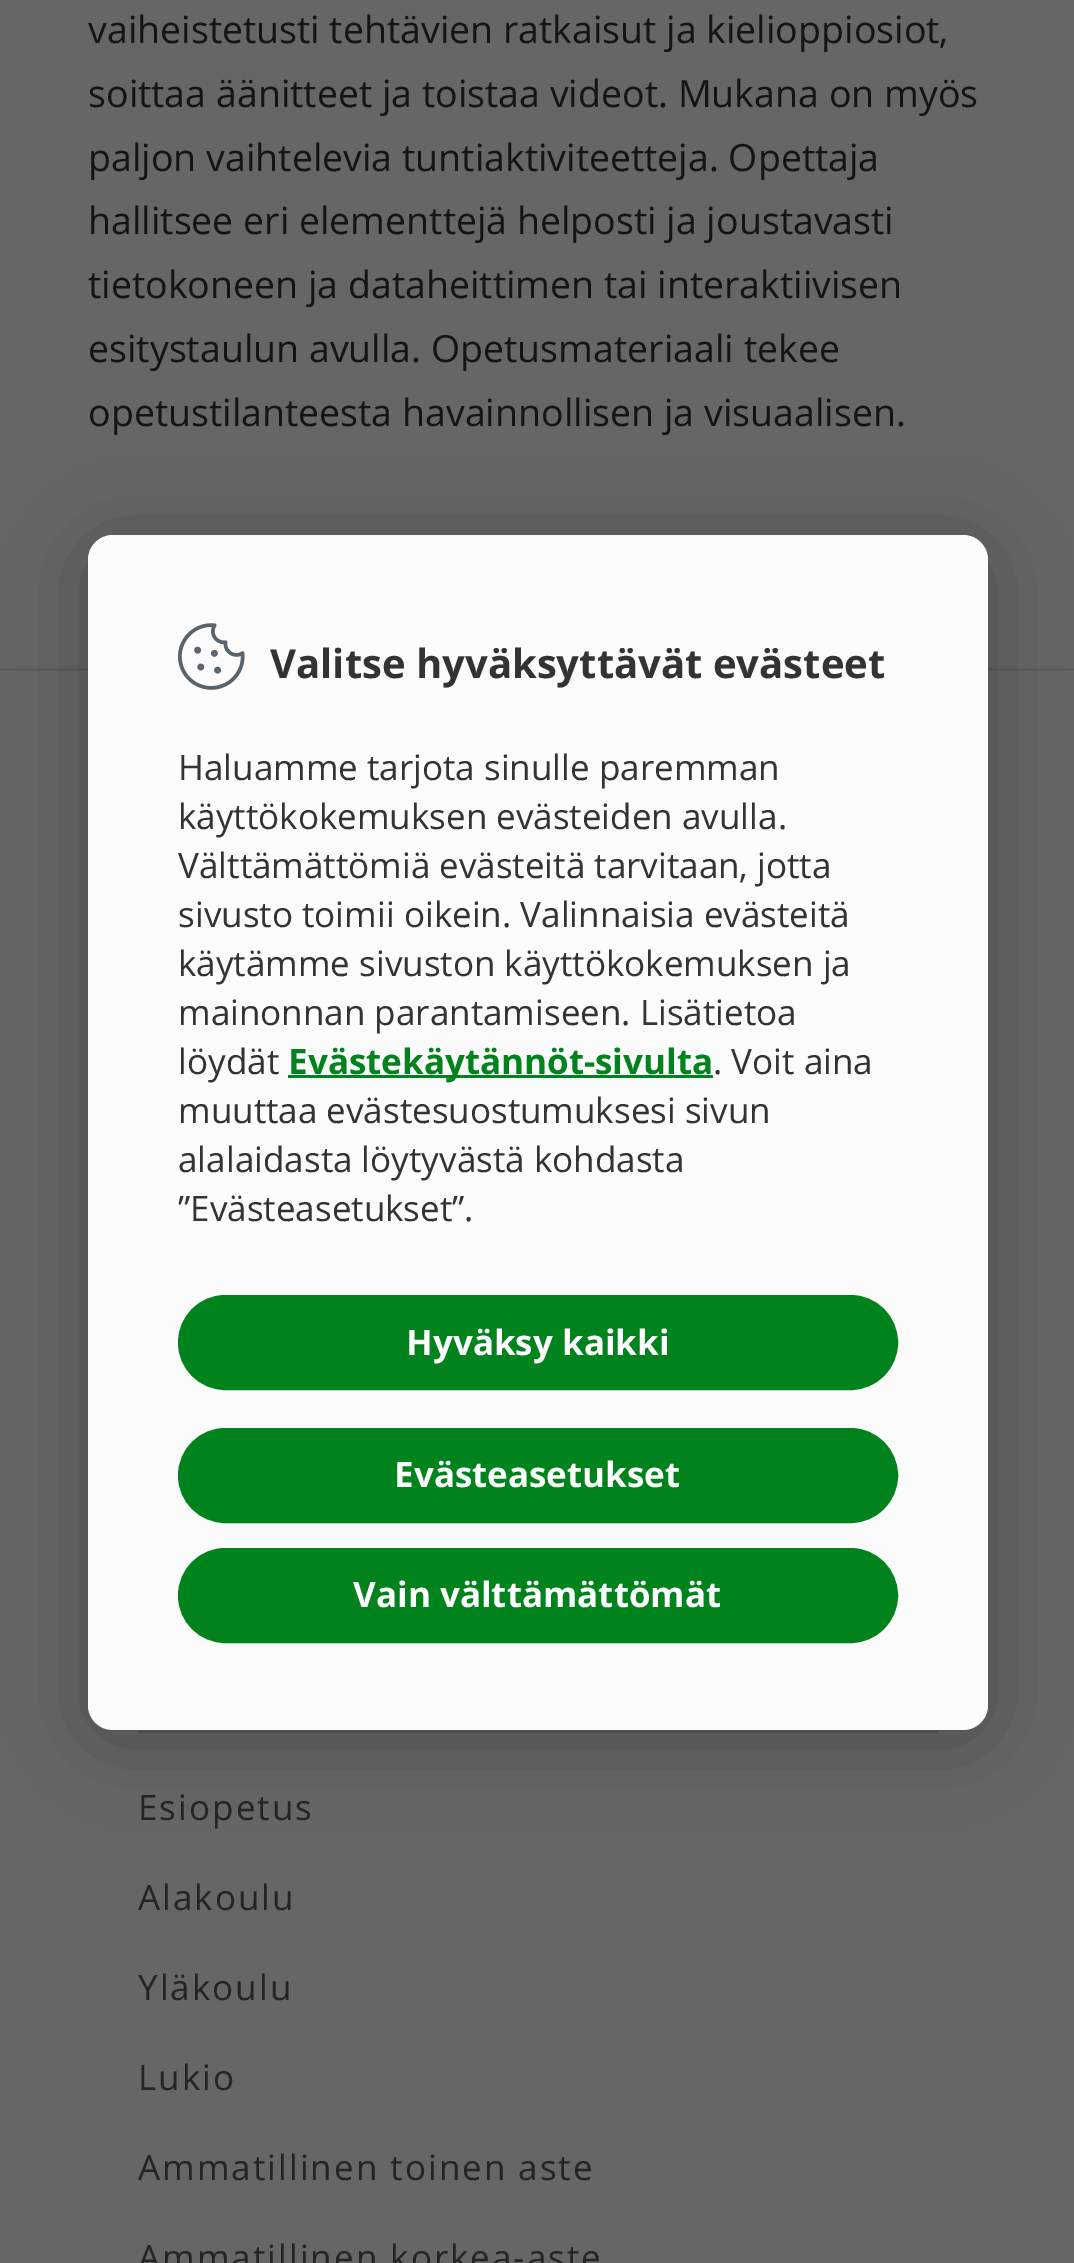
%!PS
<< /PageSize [1074 2263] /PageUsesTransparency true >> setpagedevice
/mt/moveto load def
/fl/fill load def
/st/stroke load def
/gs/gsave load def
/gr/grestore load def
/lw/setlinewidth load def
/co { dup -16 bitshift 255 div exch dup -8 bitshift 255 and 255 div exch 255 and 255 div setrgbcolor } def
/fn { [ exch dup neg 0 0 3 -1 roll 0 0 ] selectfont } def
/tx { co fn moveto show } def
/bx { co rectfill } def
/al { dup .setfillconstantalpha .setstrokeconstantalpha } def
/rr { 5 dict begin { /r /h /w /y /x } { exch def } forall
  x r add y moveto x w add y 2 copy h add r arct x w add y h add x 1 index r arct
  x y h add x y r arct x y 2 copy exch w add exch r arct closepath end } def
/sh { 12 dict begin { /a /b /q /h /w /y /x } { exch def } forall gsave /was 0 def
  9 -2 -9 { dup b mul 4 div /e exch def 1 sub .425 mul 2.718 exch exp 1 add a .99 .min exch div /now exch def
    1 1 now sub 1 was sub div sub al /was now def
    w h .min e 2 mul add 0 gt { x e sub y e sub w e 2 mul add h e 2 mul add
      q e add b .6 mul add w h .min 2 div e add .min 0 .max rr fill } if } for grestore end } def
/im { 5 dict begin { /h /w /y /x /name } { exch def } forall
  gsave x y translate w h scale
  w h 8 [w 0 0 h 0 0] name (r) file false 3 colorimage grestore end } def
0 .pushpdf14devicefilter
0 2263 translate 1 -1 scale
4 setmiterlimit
0 0 1074 2263 16#666666 bx
0 668 1074 3 16#5C5C5C bx
138 1730 800 3 16#5C5C5C bx
16#000000 co
88 545 900 1195 25 40 .25 sh
16#FBFBFB co
88 535 900 1195 25 rr fl
(media/1.raw) 178 623 67 67 im
288 1075 425 3 16#00831C bx
179.5 1296.5 717 92 46 rr gs fl gr
3 lw
st
179.5 1429.5 717 92 46 rr gs fl gr
st
179.5 1549.5 717 92 46 rr gs fl gr
st
(vaiheistetusti tehtävien ratkaisut ja kielioppiosiot,) 88 43 /OpenSans-Regular 37.5 16#141414 tx
(soittaa äänitteet ja toistaa videot. Mukana on myös) 88 107 /OpenSans-Regular 37.5 16#141414 tx
(paljon vaihtelevia tuntiaktiviteetteja. Opettaja) 88 171 /OpenSans-Regular 37.5 16#141414 tx
(hallitsee eri elementtejä helposti ja joustavasti) 88 234 /OpenSans-Regular 37.5 16#141414 tx
(tietokoneen ja dataheittimen tai interaktiivisen) 88 298 /OpenSans-Regular 37.5 16#141414 tx
(esitystaulun avulla. Opetusmateriaali tekee) 88 362 /OpenSans-Regular 37.5 16#141414 tx
(opetustilanteesta havainnollisen ja visuaalisen.) 88 426 /OpenSans-Regular 37.5 16#141414 tx
/OpenSans-Regular 35 fn
16#242424 co
138 1820 mt 2 0 (Esiopetus) ashow
138 1910 mt 2 0 (Alakoulu) ashow
138 2000 mt 2 0 (Yläkoulu) ashow
138 2090 mt 2 0 (Lukio) ashow
138 2180 mt 2 0 (Ammatillinen toinen aste) ashow
138 2270 mt 2 0 (Ammatillinen korkea-aste) ashow
(Valitse hyväksyttävät evästeet) 270 678 /OpenSans-Bold 40 16#333333 tx
(Haluamme tarjota sinulle paremman) 178 780 /OpenSans-Regular 35 16#333333 tx
(käyttökokemuksen evästeiden avulla.) 178 829 /OpenSans-Regular 35 16#333333 tx
(Välttämättömiä evästeitä tarvitaan, jotta) 178 878 /OpenSans-Regular 35 16#333333 tx
(sivusto toimii oikein. Valinnaisia evästeitä) 178 927 /OpenSans-Regular 35 16#333333 tx
(käytämme sivuston käyttökokemuksen ja) 178 976 /OpenSans-Regular 35 16#333333 tx
(mainonnan parantamiseen. Lisätietoa) 178 1025 /OpenSans-Regular 35 16#333333 tx
(löydät) 178 1074 /OpenSans-Regular 35 16#333333 tx
(Evästekäytännöt-sivulta) 288 1074 /OpenSans-Bold 35 16#00831C tx
(. Voit aina) 713 1074 /OpenSans-Regular 35 16#333333 tx
(muuttaa evästesuostumuksesi sivun) 178 1123 /OpenSans-Regular 35 16#333333 tx
(alalaidasta löytyvästä kohdasta) 178 1172 /OpenSans-Regular 35 16#333333 tx
(”Evästeasetukset”.) 178 1221 /OpenSans-Regular 35 16#333333 tx
(Hyväksy kaikki) 406 1355 /OpenSans-Bold 35 16#FFFFFF tx
(Evästeasetukset) 394 1487 /OpenSans-Bold 35 16#FFFFFF tx
(Vain välttämättömät) 353 1607 /OpenSans-Bold 35 16#FFFFFF tx
.poppdf14devicefilter showpage
